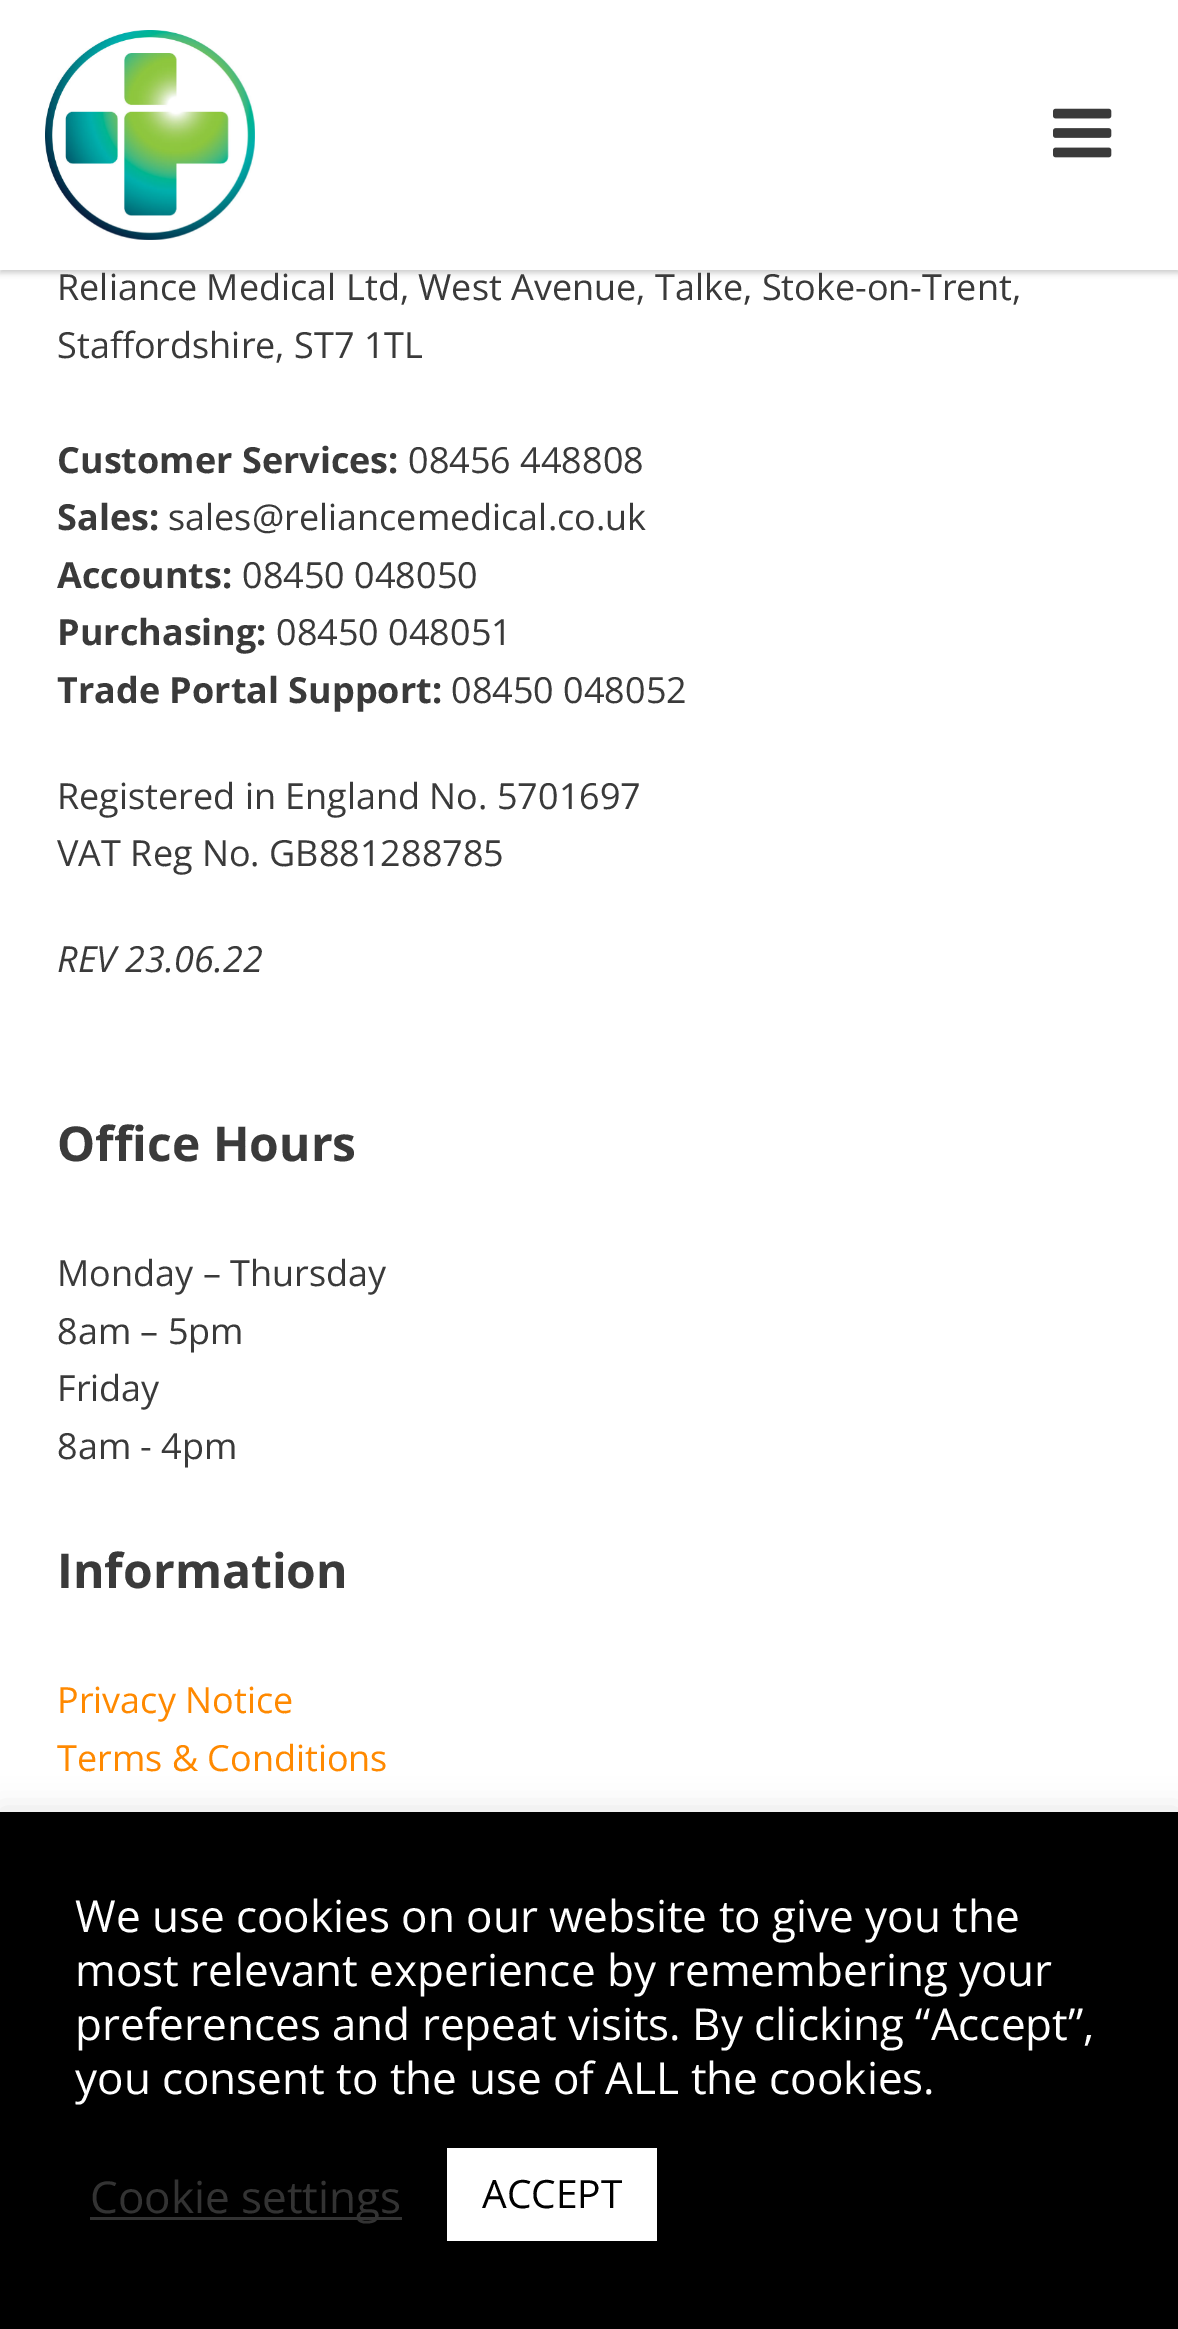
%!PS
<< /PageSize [1178 2329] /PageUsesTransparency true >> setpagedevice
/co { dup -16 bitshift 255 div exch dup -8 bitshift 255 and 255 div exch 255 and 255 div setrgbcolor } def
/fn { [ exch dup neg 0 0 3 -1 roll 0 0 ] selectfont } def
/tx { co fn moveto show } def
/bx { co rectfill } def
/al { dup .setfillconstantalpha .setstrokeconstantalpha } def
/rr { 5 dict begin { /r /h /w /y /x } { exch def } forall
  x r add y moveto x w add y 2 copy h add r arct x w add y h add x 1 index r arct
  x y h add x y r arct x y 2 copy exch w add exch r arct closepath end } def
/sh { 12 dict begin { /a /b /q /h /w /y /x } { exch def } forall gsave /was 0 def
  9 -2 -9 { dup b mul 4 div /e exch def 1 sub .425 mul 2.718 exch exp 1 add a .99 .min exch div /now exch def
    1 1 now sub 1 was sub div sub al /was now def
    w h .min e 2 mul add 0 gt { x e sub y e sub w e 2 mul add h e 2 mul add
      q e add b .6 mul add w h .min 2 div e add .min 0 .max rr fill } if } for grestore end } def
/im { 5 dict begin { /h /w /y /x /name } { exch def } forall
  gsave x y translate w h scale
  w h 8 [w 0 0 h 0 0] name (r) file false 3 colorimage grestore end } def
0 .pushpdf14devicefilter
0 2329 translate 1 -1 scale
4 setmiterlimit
0 0 1178 2329 16#FFFFFF bx
16#000000 co
0 3 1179 270 0 3 .2 sh
0 0 1178 270 16#FFFFFF bx
(media/1.raw) 45 30 210 210 im
(media/2.raw) 1053 108 59 50 im
16#ACABAB co
0 1809 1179 519 0 15 .3 sh
0 1812 1178 517 16#000000 bx
90 2217 312 3 16#333333 bx
447 2148 210 93 16#FFFFFF bx
(Reliance Medical Ltd, West Avenue, Talke, Stoke-on-Trent,) 57 300 /OpenSans-Regular 36 16#3A3A3A tx
(Staffordshire, ST7 1TL) 57 358 /OpenSans-Regular 36 16#3A3A3A tx
(Customer Services:) 57 473 /OpenSans-Bold 36 16#3A3A3A tx
(08456 448808) 408 473 /OpenSans-Regular 36 16#3A3A3A tx
(Sales:) 57 530 /OpenSans-Bold 36 16#3A3A3A tx
(sales@reliancemedical.co.uk) 168 530 /OpenSans-Regular 36 16#3A3A3A tx
(Accounts:) 57 588 /OpenSans-Bold 36 16#3A3A3A tx
(08450 048050) 242 588 /OpenSans-Regular 36 16#3A3A3A tx
(Purchasing:) 57 645 /OpenSans-Bold 36 16#3A3A3A tx
(08450 048051) 276 645 /OpenSans-Regular 36 16#3A3A3A tx
(Trade Portal Support:) 57 703 /OpenSans-Bold 36 16#3A3A3A tx
(08450 048052) 451 703 /OpenSans-Regular 36 16#3A3A3A tx
(Registered in England No. 5701697) 57 809 /OpenSans-Regular 36 16#3A3A3A tx
(VAT Reg No. GB881288785) 57 866 /OpenSans-Regular 36 16#3A3A3A tx
(REV 23.06.22) 57 972 /OpenSans-Italic 36 16#3A3A3A tx
(Office Hours) 57 1161 /OpenSans-Bold 48 16#3A3A3A tx
(Monday – Thursday) 57 1286 /OpenSans-Regular 36 16#3A3A3A tx
(8am – 5pm) 57 1344 /OpenSans-Regular 36 16#3A3A3A tx
(Friday) 57 1401 /OpenSans-Regular 36 16#3A3A3A tx
(8am - 4pm) 57 1459 /OpenSans-Regular 36 16#3A3A3A tx
(Information) 57 1588 /OpenSans-Bold 48 16#3A3A3A tx
(Privacy Notice) 57 1713 /OpenSans-Regular 36 16#FF8900 tx
(Terms & Conditions) 57 1771 /OpenSans-Regular 36 16#FF8900 tx
(We use cookies on our website to give you the) 75 1932 /OpenSans-Regular 44 16#FFFFFF tx
(most relevant experience by remembering your) 75 1986 /OpenSans-Regular 44 16#FFFFFF tx
(preferences and repeat visits. By clicking “Accept”,) 75 2040 /OpenSans-Regular 44 16#FFFFFF tx
(you consent to the use of ALL the cookies.) 75 2094 /OpenSans-Regular 44 16#FFFFFF tx
(Cookie settings) 90 2213 /OpenSans-Regular 44 16#333333 tx
(ACCEPT) 482 2208 /OpenSans-Regular 39 16#000000 tx
.poppdf14devicefilter showpage
